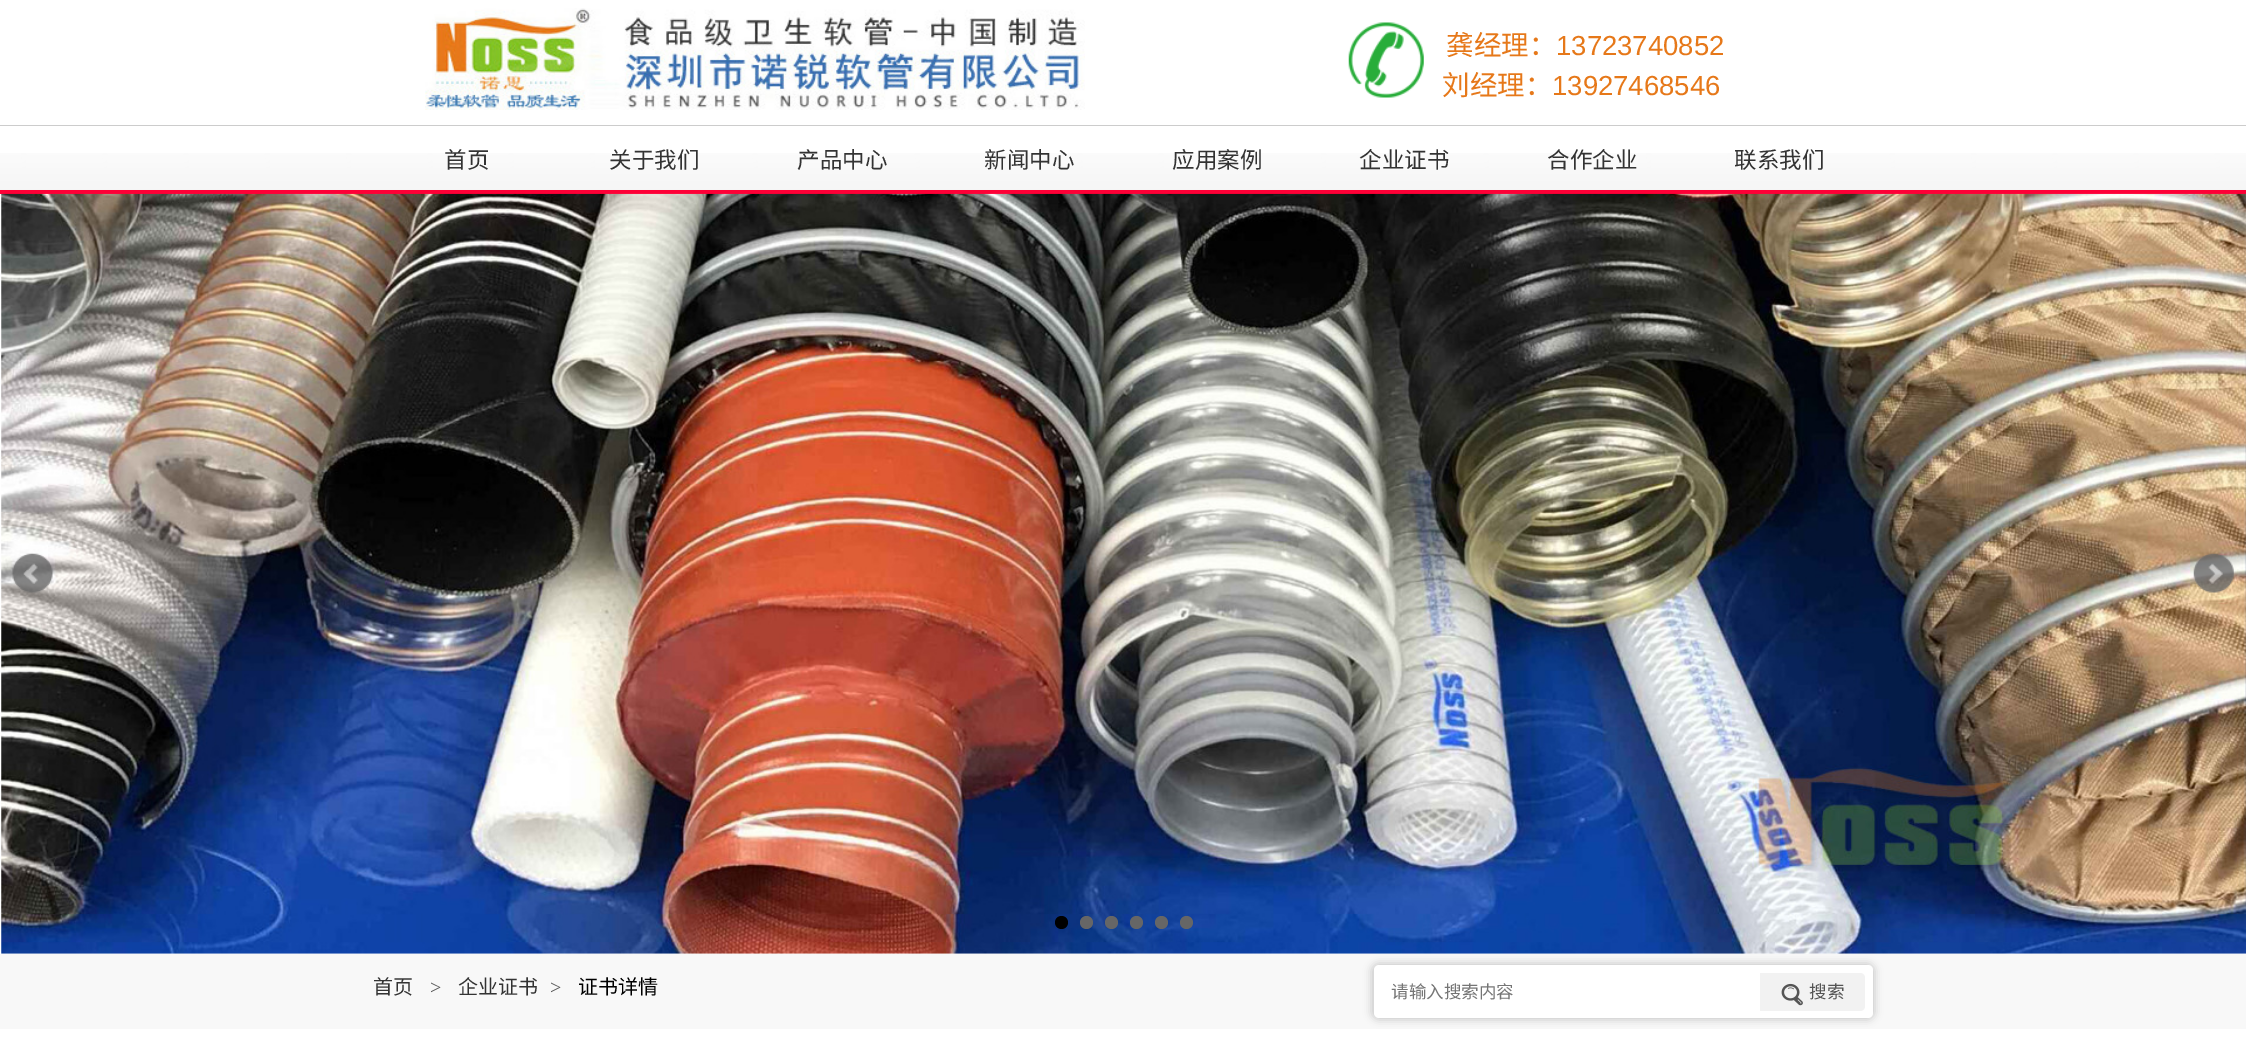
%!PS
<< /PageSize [2246 1064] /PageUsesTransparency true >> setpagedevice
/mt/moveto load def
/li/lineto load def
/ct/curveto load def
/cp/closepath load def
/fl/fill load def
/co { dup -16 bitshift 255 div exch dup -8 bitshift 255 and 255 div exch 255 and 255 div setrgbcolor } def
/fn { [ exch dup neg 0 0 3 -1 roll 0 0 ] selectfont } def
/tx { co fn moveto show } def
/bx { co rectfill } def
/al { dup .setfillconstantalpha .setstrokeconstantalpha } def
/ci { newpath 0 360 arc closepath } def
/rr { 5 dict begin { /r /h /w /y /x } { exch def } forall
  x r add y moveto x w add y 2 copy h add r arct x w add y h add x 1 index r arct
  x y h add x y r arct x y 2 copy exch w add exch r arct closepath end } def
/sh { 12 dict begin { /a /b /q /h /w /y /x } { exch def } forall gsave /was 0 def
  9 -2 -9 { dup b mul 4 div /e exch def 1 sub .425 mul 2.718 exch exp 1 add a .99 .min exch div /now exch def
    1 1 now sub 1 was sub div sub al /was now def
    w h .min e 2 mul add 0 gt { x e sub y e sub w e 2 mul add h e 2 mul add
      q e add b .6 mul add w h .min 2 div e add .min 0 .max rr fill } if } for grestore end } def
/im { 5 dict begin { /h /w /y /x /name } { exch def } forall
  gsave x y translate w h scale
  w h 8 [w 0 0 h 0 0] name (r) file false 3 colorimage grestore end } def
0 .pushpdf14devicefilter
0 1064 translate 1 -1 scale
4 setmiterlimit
0 0 2246 1064 16#FFFFFF bx
(media/1.raw) 425 8 660 102 im
(media/2.raw) 1348 22 76 76 im
(media/3.raw) 0 153 2246 37 im
0 125 2246 1 16#CCCCCC bx
0 190 2246 4 16#FE0036 bx
0 954 2246 75 16#F8F8F8 bx
16#CCCCCC co
1371 963 504 57 8 4 1 sh
(media/4.raw) 1 193 2245 761 im
(media/5.raw) 12 553 41 40 im
(media/6.raw) 2193 553 41 40 im
16#000000 co
1061.5 922.5 6.5 ci fl
16#666666 co
1086.5 922.5 6.5 ci fl
1111.5 922.5 6.5 ci fl
1136.5 922.5 6.5 ci fl
1161.5 922.5 6.5 ci fl
1186.5 922.5 6.5 ci fl
16#FFFFFF co
1374 965 499 53 5 rr fl
16#F2F2F2 co
1760 973 mt 1860 973 li 1863 973 1865 975 1865 978 ct 1865 1006 li 1865 1009 1863 1011 1860 1011 ct 1760 1011 li cp fl
(media/7.raw) 1781 983 22 23 im
(龚经理：) 1446 55 /NotoSansCJKSC-Regular 27.5 16#E67819 tx
(13723740852) 1556 55 /LiberationSans-Regular 27.5 16#E67819 tx
(刘经理：) 1442 95 /NotoSansCJKSC-Regular 27.5 16#E67819 tx
(13927468546) 1552 95 /LiberationSans-Regular 27.5 16#E67819 tx
(首页) 444 168 /NotoSansCJKSC-Regular 22.5 16#333333 tx
(关于我们) 609 168 /NotoSansCJKSC-Regular 22.5 16#333333 tx
(产品中心) 797 168 /NotoSansCJKSC-Regular 22.5 16#333333 tx
(新闻中心) 984 168 /NotoSansCJKSC-Regular 22.5 16#333333 tx
(应用案例) 1172 168 /NotoSansCJKSC-Regular 22.5 16#333333 tx
(企业证书) 1359 168 /NotoSansCJKSC-Regular 22.5 16#333333 tx
(合作企业) 1547 168 /NotoSansCJKSC-Regular 22.5 16#333333 tx
(联系我们) 1734 168 /NotoSansCJKSC-Regular 22.5 16#333333 tx
(首页) 373 994 /NotoSansCJKSC-Regular 20 16#333333 tx
(>) 430 994 /LiberationSerif-Regular 20 16#555555 tx
(企业证书) 458 994 /NotoSansCJKSC-Regular 20 16#333333 tx
(>) 550 994 /LiberationSerif-Regular 20 16#555555 tx
(证书详情) 578 994 /NotoSansCJKSC-Regular 20 16#000000 tx
(请输入搜索内容) 1391 998 /NotoSansCJKSC-Regular 17.5 16#757575 tx
(搜索) 1809 998 /NotoSansCJKSC-Regular 17.5 16#555555 tx
.poppdf14devicefilter showpage
